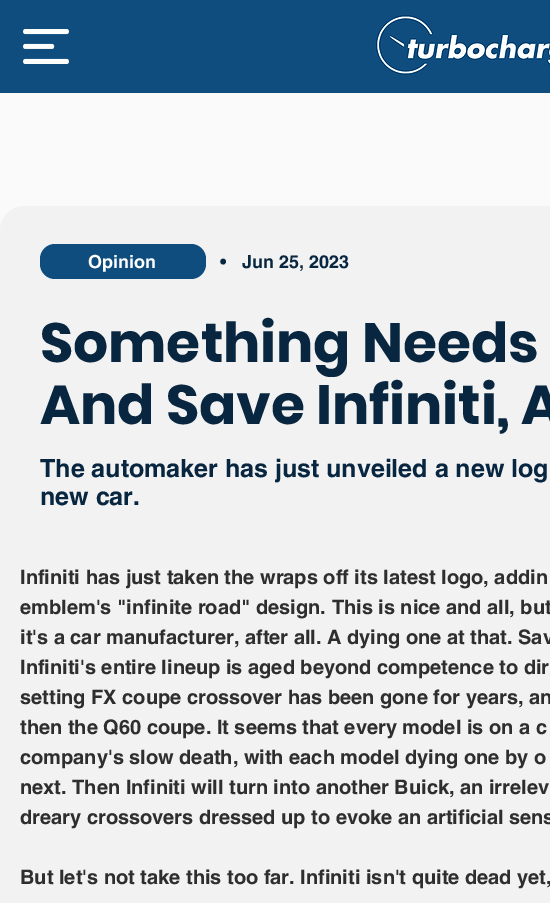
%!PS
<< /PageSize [550 903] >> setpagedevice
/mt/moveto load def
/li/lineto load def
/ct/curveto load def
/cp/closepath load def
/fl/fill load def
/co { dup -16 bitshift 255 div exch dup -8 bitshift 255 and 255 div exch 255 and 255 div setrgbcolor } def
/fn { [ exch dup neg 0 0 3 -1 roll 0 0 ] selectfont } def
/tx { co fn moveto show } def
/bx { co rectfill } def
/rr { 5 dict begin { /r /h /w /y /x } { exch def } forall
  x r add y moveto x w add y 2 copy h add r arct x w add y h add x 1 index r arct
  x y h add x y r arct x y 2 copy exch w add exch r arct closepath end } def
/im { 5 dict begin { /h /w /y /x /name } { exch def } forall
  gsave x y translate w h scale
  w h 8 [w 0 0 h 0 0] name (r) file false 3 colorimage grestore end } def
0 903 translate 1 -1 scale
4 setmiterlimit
0 0 550 903 16#FAFAFA bx
0 0 550 93 16#0F4D7F bx
(media/1.raw) 23 29 46 35 im
(media/2.raw) 375 14 175 62 im
16#F2F2F2 co
25 206 mt 550 206 li 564 206 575 217 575 231 ct 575 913 li 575 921.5 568.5 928 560 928 ct 15 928 li 6.5 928 0 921.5 0 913 ct 0 231 li 0 217 11 206 25 206 ct cp fl
16#0F4D7F co
40 244 166 35 15 rr fl
(Opinion) 88 268 /helvetica-Bold 18 16#FFFFFF tx
(•) 220 268 /helvetica-Bold 18 16#082640 tx
(Jun 25, 2023) 242 268 /helvetica-Bold 18 16#082640 tx
(Something Needs) 40 362 /Poppins-Bold 55 16#082640 tx
(And Save Infiniti, A) 40 424 /Poppins-Bold 55 16#082640 tx
(The automaker has just unveiled a new log) 40 477 /helvetica-Bold 25 16#082640 tx
(new car.) 40 505 /helvetica-Bold 25 16#082640 tx
(Infiniti has just taken the wraps off its latest logo, addin) 20 584 /helvetica-Bold 20 16#2E2E2E tx
(emblem's "infinite road" design. This is nice and all, but) 20 614 /helvetica-Bold 20 16#2E2E2E tx
(it's a car manufacturer, after all. A dying one at that. Sav) 20 644 /helvetica-Bold 20 16#2E2E2E tx
(Infiniti's entire lineup is aged beyond competence to dir) 20 674 /helvetica-Bold 20 16#2E2E2E tx
(setting FX coupe crossover has been gone for years, an) 20 704 /helvetica-Bold 20 16#2E2E2E tx
(then the Q60 coupe. It seems that every model is on a c) 20 734 /helvetica-Bold 20 16#2E2E2E tx
(company's slow death, with each model dying one by o) 20 764 /helvetica-Bold 20 16#2E2E2E tx
(next. Then Infiniti will turn into another Buick, an irrelev) 20 794 /helvetica-Bold 20 16#2E2E2E tx
(dreary crossovers dressed up to evoke an artificial sens) 20 824 /helvetica-Bold 20 16#2E2E2E tx
(But let's not take this too far. Infiniti isn't quite dead yet,) 20 884 /helvetica-Bold 20 16#2E2E2E tx
showpage
